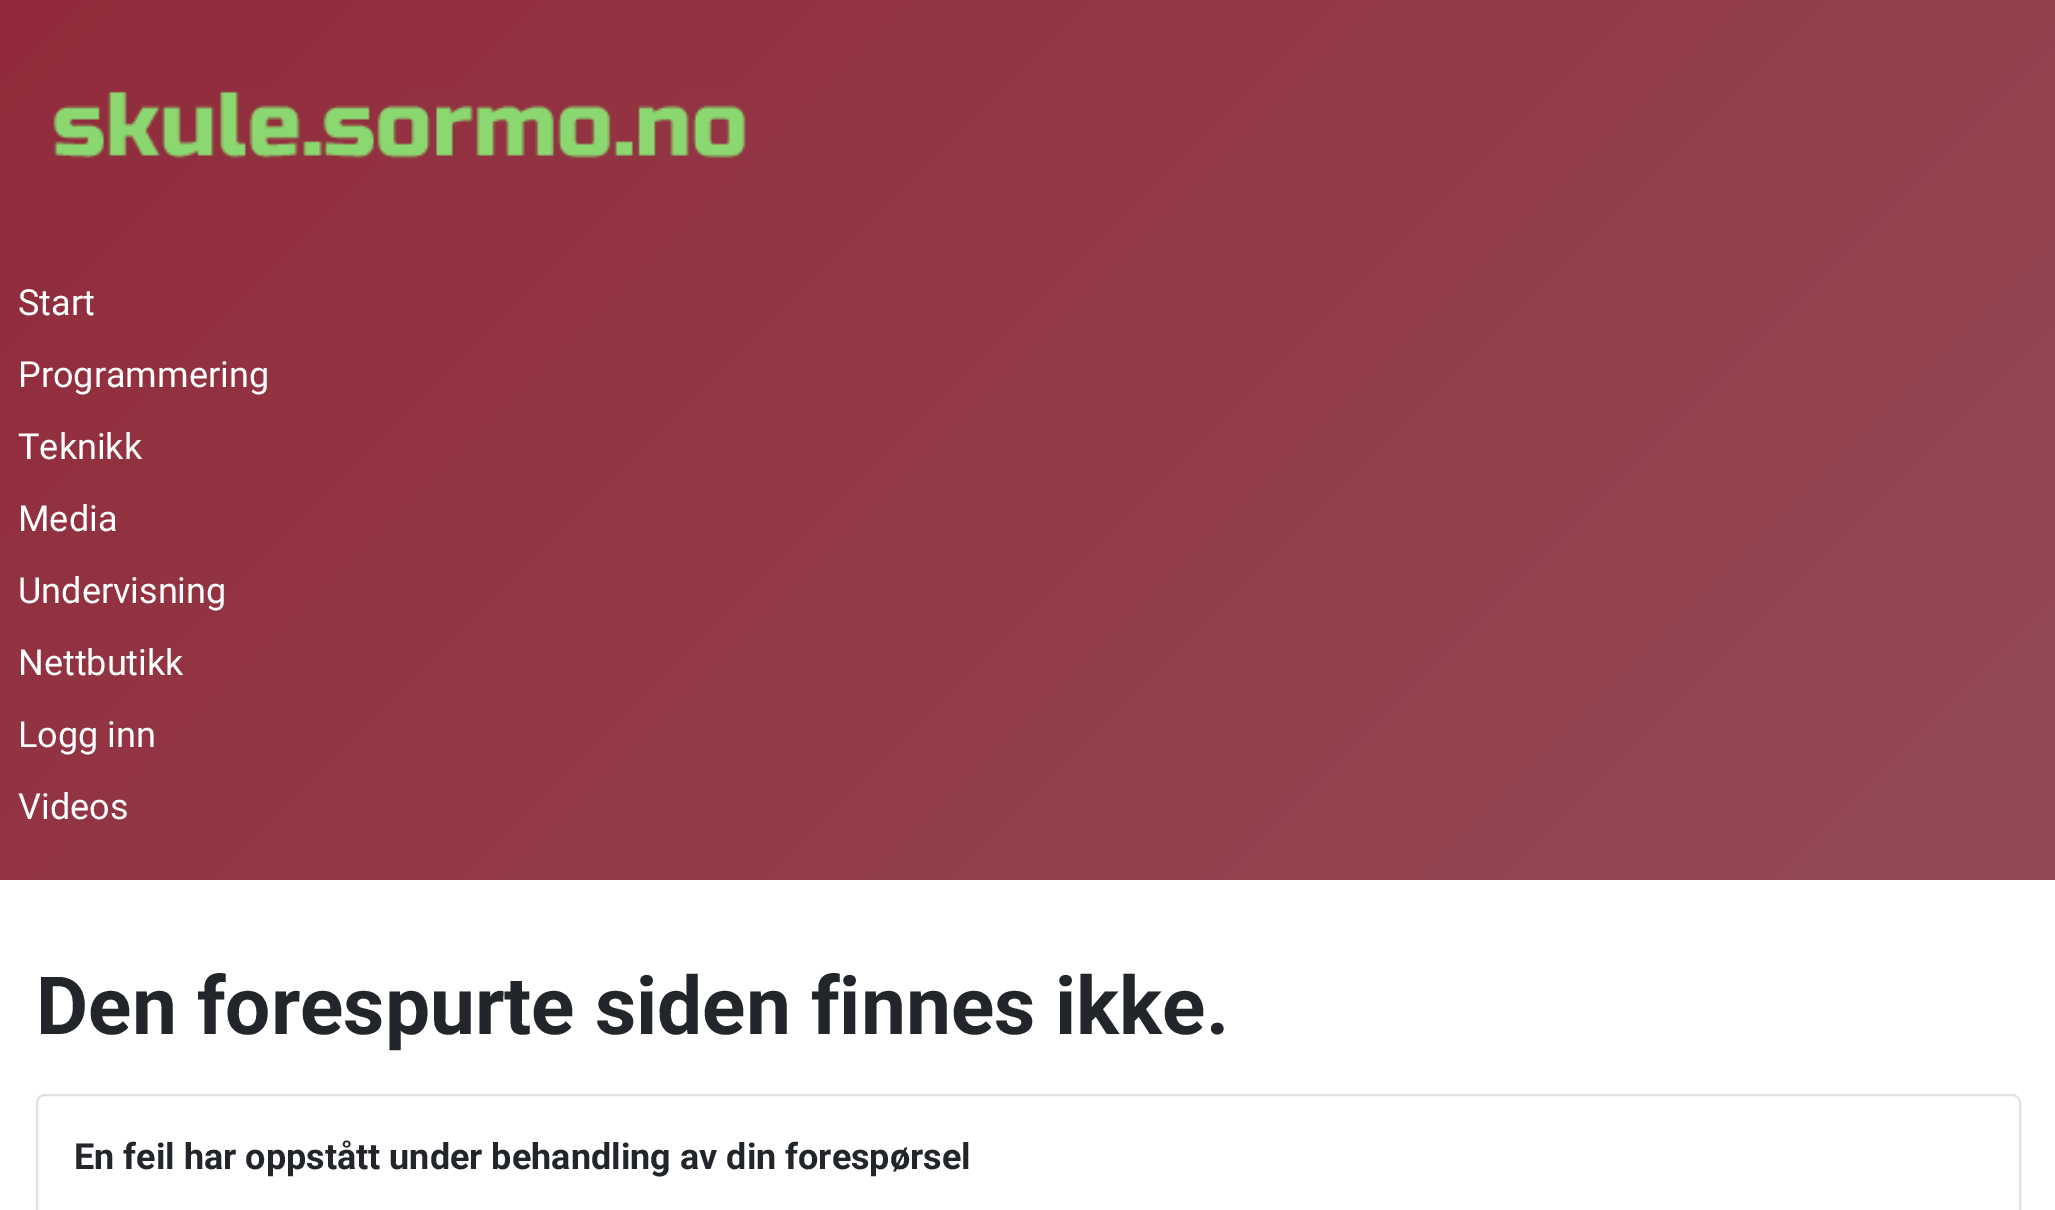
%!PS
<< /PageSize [2055 1210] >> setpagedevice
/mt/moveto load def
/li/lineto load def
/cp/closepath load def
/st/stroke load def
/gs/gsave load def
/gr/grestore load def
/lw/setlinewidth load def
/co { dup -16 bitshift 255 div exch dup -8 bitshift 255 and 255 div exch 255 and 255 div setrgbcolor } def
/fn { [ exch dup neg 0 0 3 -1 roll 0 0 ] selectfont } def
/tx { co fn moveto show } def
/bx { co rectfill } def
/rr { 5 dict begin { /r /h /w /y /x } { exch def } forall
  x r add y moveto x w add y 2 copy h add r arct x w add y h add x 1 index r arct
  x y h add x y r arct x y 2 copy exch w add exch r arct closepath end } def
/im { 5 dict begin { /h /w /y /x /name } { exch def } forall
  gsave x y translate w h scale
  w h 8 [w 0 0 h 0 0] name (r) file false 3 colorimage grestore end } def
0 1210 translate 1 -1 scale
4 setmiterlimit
0 0 2055 1210 16#FFFFFF bx
gs 0 0 mt 2055 0 li 2055 880 li 0 880 li cp clip newpath
<< /ShadingType 2 /ColorSpace /DeviceRGB /Coords [294 -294 1762 1174] /Extend [true true] /Function << /FunctionType 2 /Domain [0 1] /C0 [.569 .169 .231] /C1 [.584 .294 .337] /N 1 >> >> shfill gr
(media/1.raw) 53 91 693 68 im
16#DFE3E7 co
2 lw
37 1095 1983 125 8 rr st
(Start) 18 315 /Roboto-Regular 36 16#FFFFFF tx
(Programmering) 18 387 /Roboto-Regular 36 16#FFFFFF tx
(Teknikk) 18 459 /Roboto-Regular 36 16#FFFFFF tx
(Media) 18 531 /Roboto-Regular 36 16#FFFFFF tx
(Undervisning) 18 603 /Roboto-Regular 36 16#FFFFFF tx
(Nettbutikk) 18 675 /Roboto-Regular 36 16#FFFFFF tx
(Logg inn) 18 747 /Roboto-Regular 36 16#FFFFFF tx
(Videos) 18 819 /Roboto-Regular 36 16#FFFFFF tx
(Den forespurte siden finnes ikke.) 36 1034 /Roboto-Bold 80.3 16#22262A tx
(En feil har oppstått under behandling av din forespørsel) 74 1169 /Roboto-Bold 36 16#22262A tx
showpage
